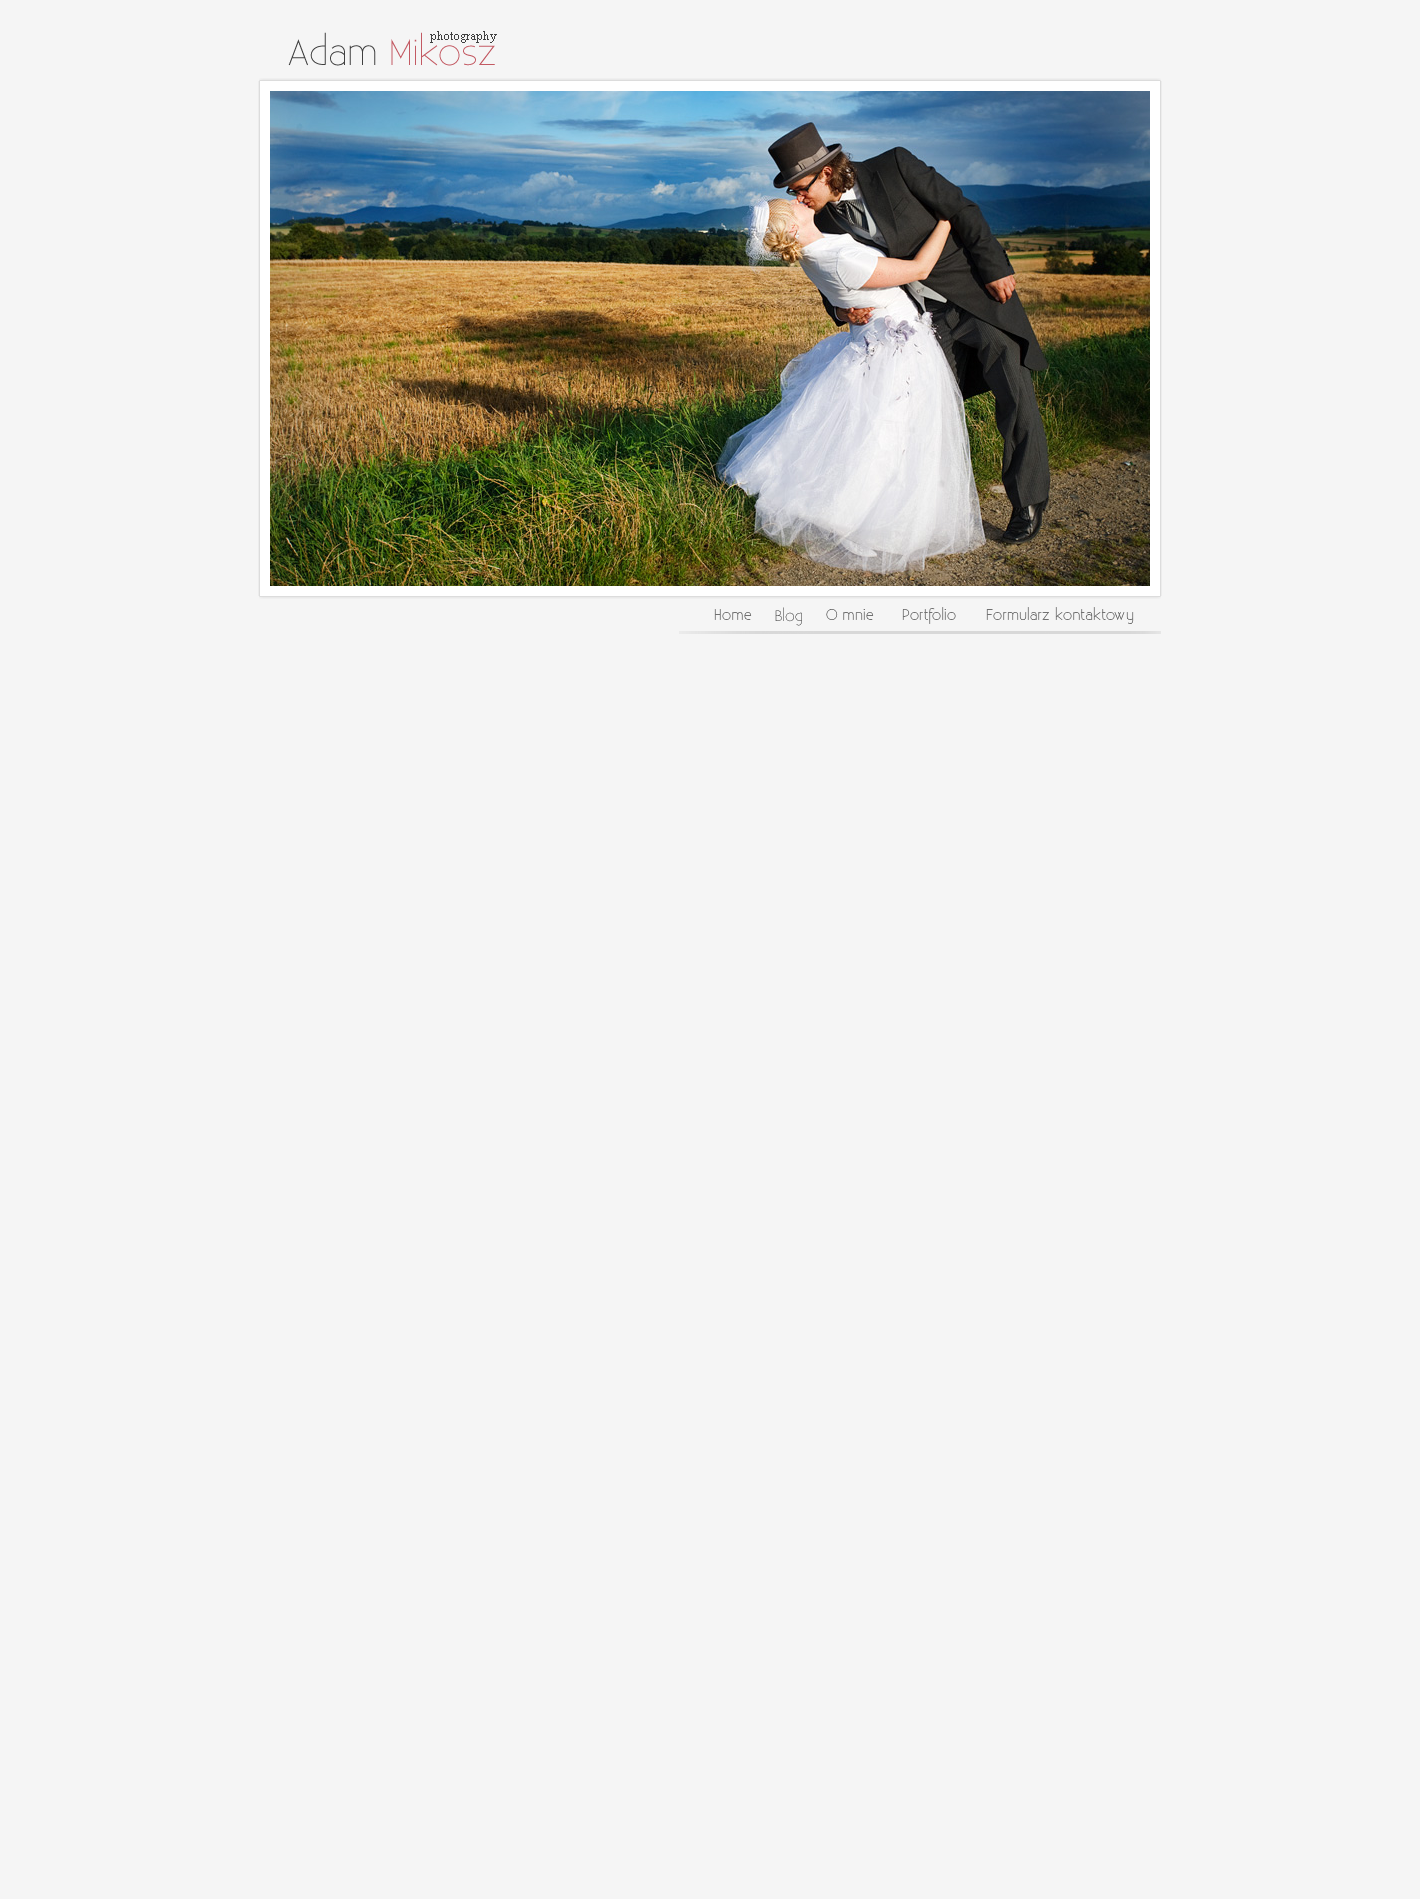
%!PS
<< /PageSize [1420 1899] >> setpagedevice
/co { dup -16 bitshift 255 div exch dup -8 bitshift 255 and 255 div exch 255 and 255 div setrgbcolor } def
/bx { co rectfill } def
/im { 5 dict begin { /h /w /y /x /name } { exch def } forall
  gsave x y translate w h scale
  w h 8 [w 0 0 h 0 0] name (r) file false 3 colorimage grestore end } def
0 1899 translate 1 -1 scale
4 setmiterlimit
0 0 1420 1899 16#F5F5F5 bx
(media/1.raw) 288 31 209 35 im
(media/2.raw) 259 78 902 3 im
(media/3.raw) 258 81 904 515 im
(media/4.raw) 270 91 880 495 im
(media/5.raw) 259 596 902 3 im
(media/6.raw) 679 609 85 25 im
(media/7.raw) 764 607 50 27 im
(media/8.raw) 814 609 73 25 im
(media/9.raw) 887 607 84 27 im
(media/10.raw) 971 607 190 27 im
showpage
